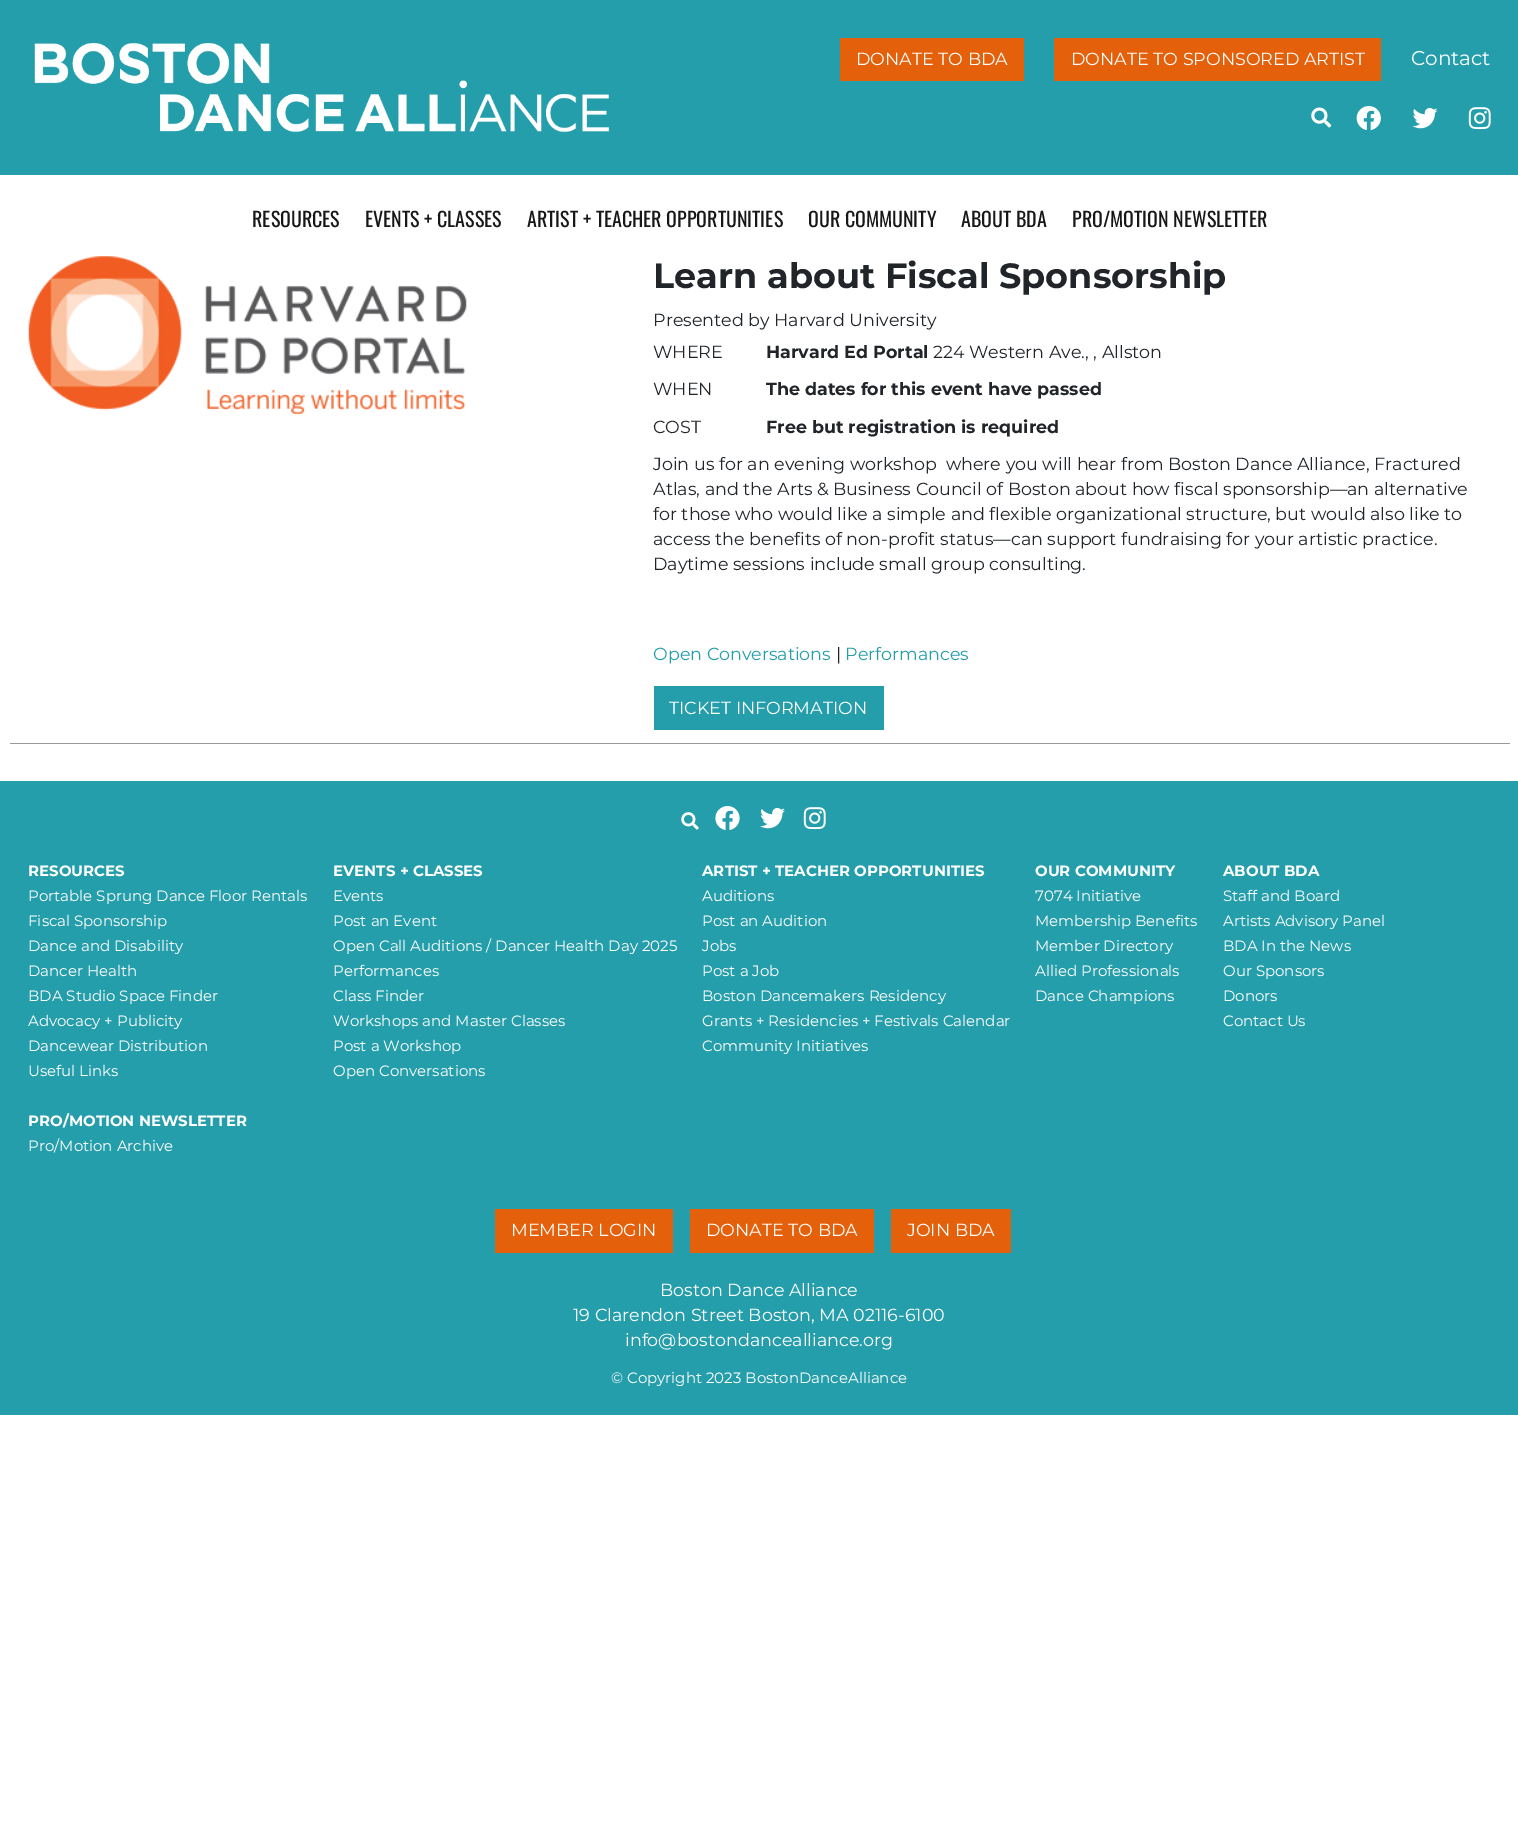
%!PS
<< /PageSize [1518 1821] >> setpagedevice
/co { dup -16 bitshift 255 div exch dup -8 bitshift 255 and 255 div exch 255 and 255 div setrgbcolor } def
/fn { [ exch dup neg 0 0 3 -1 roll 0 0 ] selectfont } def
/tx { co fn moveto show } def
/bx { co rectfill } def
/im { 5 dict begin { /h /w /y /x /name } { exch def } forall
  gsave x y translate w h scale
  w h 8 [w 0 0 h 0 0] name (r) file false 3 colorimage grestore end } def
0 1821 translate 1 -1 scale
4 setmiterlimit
0 0 1518 1821 16#FFFFFF bx
0 0 1518 175 16#259EAB bx
(media/1.raw) 34 43 575 90 im
840 38 184 43 16#E4600B bx
1054 38 327 43 16#E4600B bx
(media/2.raw) 1311 107 21 21 im
(media/3.raw) 1356 106 25 24 im
(media/4.raw) 1412 108 26 21 im
(media/5.raw) 1468 107 23 23 im
10 743 1500 1 16#979A9B bx
(media/6.raw) 28 256 439 158 im
654 686 230 44 16#259EAB bx
0 781 1518 634 16#259EAB bx
(media/7.raw) 681 812 18 18 im
(media/8.raw) 715 806 25 24 im
(media/9.raw) 760 808 25 21 im
(media/5.raw) 803 807 23 23 im
495 1209 178 44 16#E4600B bx
690 1209 184 44 16#E4600B bx
891 1209 120 44 16#E4600B bx
(DONATE TO BDA) 856 65 /Montserrat-Regular 17.5 16#FFFFFF tx
(DONATE TO SPONSORED ARTIST) 1071 65 /Montserrat-Regular 17.5 16#FFFFFF tx
(Contact) 1411 65 /Montserrat-Regular 20 16#FFFFFF tx
(RESOURCES) 252 227 /Oswald-Regular 20 16#171717 tx
(EVENTS + CLASSES) 365 227 /Oswald-Regular 20 16#171717 tx
(ARTIST + TEACHER OPPORTUNITIES) 527 227 /Oswald-Regular 20 16#171717 tx
(OUR COMMUNITY) 808 227 /Oswald-Regular 20 16#171717 tx
(ABOUT BDA) 961 227 /Oswald-Regular 20 16#171717 tx
(PRO/MOTION NEWSLETTER) 1072 227 /Oswald-Regular 20 16#171717 tx
(Learn about Fiscal Sponsorship) 653 288 /Montserrat-Bold 35 16#212529 tx
(Presented by Harvard University) 653 326 /Montserrat-Regular 17.5 16#212529 tx
(WHERE) 653 358 /Montserrat-Regular 17.5 16#212529 tx
(Harvard Ed Portal) 766 358 /Montserrat-Bold 17.5 16#212529 tx
(224 Western Ave., , Allston) 933 358 /Montserrat-Regular 17.5 16#212529 tx
(WHEN) 653 395 /Montserrat-Regular 17.5 16#212529 tx
(The dates for this event have passed) 766 395 /Montserrat-Bold 17.5 16#212529 tx
(COST) 653 433 /Montserrat-Regular 17.5 16#212529 tx
(Free but registration is required) 766 433 /Montserrat-Bold 17.5 16#212529 tx
(Join us for an evening workshop  where you will hear from Boston Dance Alliance, Fractured) 653 470 /Montserrat-Regular 17.5 16#212529 tx
(Atlas, and the Arts & Business Council of Boston about how fiscal sponsorship—an alternative) 653 495 /Montserrat-Regular 17.5 16#212529 tx
(for those who would like a simple and flexible organizational structure, but would also like to) 653 520 /Montserrat-Regular 17.5 16#212529 tx
(access the benefits of non-profit status—can support fundraising for your artistic practice.) 653 545 /Montserrat-Regular 17.5 16#212529 tx
(Daytime sessions include small group consulting.) 653 570 /Montserrat-Regular 17.5 16#212529 tx
(Open Conversations) 653 660 /Montserrat-Regular 17.5 16#259EAB tx
(|) 836 660 /Montserrat-Regular 17.5 16#212529 tx
(Performances) 845 660 /Montserrat-Regular 17.5 16#259EAB tx
(TICKET INFORMATION) 669 714 /Montserrat-Regular 17.5 16#FFFFFF tx
(RESOURCES) 28 876 /Montserrat-Bold 15 16#FFFFFF tx
(Portable Sprung Dance Floor Rentals) 28 901 /Montserrat-Regular 15 16#FFFFFF tx
(Fiscal Sponsorship) 28 926 /Montserrat-Regular 15 16#FFFFFF tx
(Dance and Disability) 28 951 /Montserrat-Regular 15 16#FFFFFF tx
(Dancer Health) 28 976 /Montserrat-Regular 15 16#FFFFFF tx
(BDA Studio Space Finder) 28 1001 /Montserrat-Regular 15 16#FFFFFF tx
(Advocacy + Publicity) 28 1026 /Montserrat-Regular 15 16#FFFFFF tx
(Dancewear Distribution) 28 1051 /Montserrat-Regular 15 16#FFFFFF tx
(Useful Links) 28 1076 /Montserrat-Regular 15 16#FFFFFF tx
(EVENTS + CLASSES) 333 876 /Montserrat-Bold 15 16#FFFFFF tx
(Events) 333 901 /Montserrat-Regular 15 16#FFFFFF tx
(Post an Event) 333 926 /Montserrat-Regular 15 16#FFFFFF tx
(Open Call Auditions / Dancer Health Day 2025) 333 951 /Montserrat-Regular 15 16#FFFFFF tx
(Performances) 333 976 /Montserrat-Regular 15 16#FFFFFF tx
(Class Finder) 333 1001 /Montserrat-Regular 15 16#FFFFFF tx
(Workshops and Master Classes) 333 1026 /Montserrat-Regular 15 16#FFFFFF tx
(Post a Workshop) 333 1051 /Montserrat-Regular 15 16#FFFFFF tx
(Open Conversations) 333 1076 /Montserrat-Regular 15 16#FFFFFF tx
(ARTIST + TEACHER OPPORTUNITIES) 702 876 /Montserrat-Bold 15 16#FFFFFF tx
(Auditions) 702 901 /Montserrat-Regular 15 16#FFFFFF tx
(Post an Audition) 702 926 /Montserrat-Regular 15 16#FFFFFF tx
(Jobs) 702 951 /Montserrat-Regular 15 16#FFFFFF tx
(Post a Job) 702 976 /Montserrat-Regular 15 16#FFFFFF tx
(Boston Dancemakers Residency) 702 1001 /Montserrat-Regular 15 16#FFFFFF tx
(Grants + Residencies + Festivals Calendar) 702 1026 /Montserrat-Regular 15 16#FFFFFF tx
(Community Initiatives) 702 1051 /Montserrat-Regular 15 16#FFFFFF tx
(OUR COMMUNITY) 1035 876 /Montserrat-Bold 15 16#FFFFFF tx
(7074 Initiative) 1035 901 /Montserrat-Regular 15 16#FFFFFF tx
(Membership Benefits) 1035 926 /Montserrat-Regular 15 16#FFFFFF tx
(Member Directory) 1035 951 /Montserrat-Regular 15 16#FFFFFF tx
(Allied Professionals) 1035 976 /Montserrat-Regular 15 16#FFFFFF tx
(Dance Champions) 1035 1001 /Montserrat-Regular 15 16#FFFFFF tx
(ABOUT BDA) 1223 876 /Montserrat-Bold 15 16#FFFFFF tx
(Staff and Board) 1223 901 /Montserrat-Regular 15 16#FFFFFF tx
(Artists Advisory Panel) 1223 926 /Montserrat-Regular 15 16#FFFFFF tx
(BDA In the News) 1223 951 /Montserrat-Regular 15 16#FFFFFF tx
(Our Sponsors) 1223 976 /Montserrat-Regular 15 16#FFFFFF tx
(Donors) 1223 1001 /Montserrat-Regular 15 16#FFFFFF tx
(Contact Us) 1223 1026 /Montserrat-Regular 15 16#FFFFFF tx
(PRO/MOTION NEWSLETTER) 28 1126 /Montserrat-Bold 15 16#FFFFFF tx
(Pro/Motion Archive) 28 1151 /Montserrat-Regular 15 16#FFFFFF tx
(MEMBER LOGIN) 511 1236 /Montserrat-Regular 17.5 16#FFFFFF tx
(DONATE TO BDA) 706 1236 /Montserrat-Regular 17.5 16#FFFFFF tx
(JOIN BDA) 907 1236 /Montserrat-Regular 17.5 16#FFFFFF tx
(Boston Dance Alliance) 660 1296 /Montserrat-Regular 17.5 16#FFFFFF tx
(19 Clarendon Street Boston, MA 02116-6100) 573 1321 /Montserrat-Regular 17.5 16#FFFFFF tx
(info@bostondancealliance.org) 625 1346 /Montserrat-Regular 17.5 16#FFFFFF tx
(© Copyright 2023 BostonDanceAlliance) 611 1383 /Montserrat-Regular 15 16#FFFFFF tx
showpage
